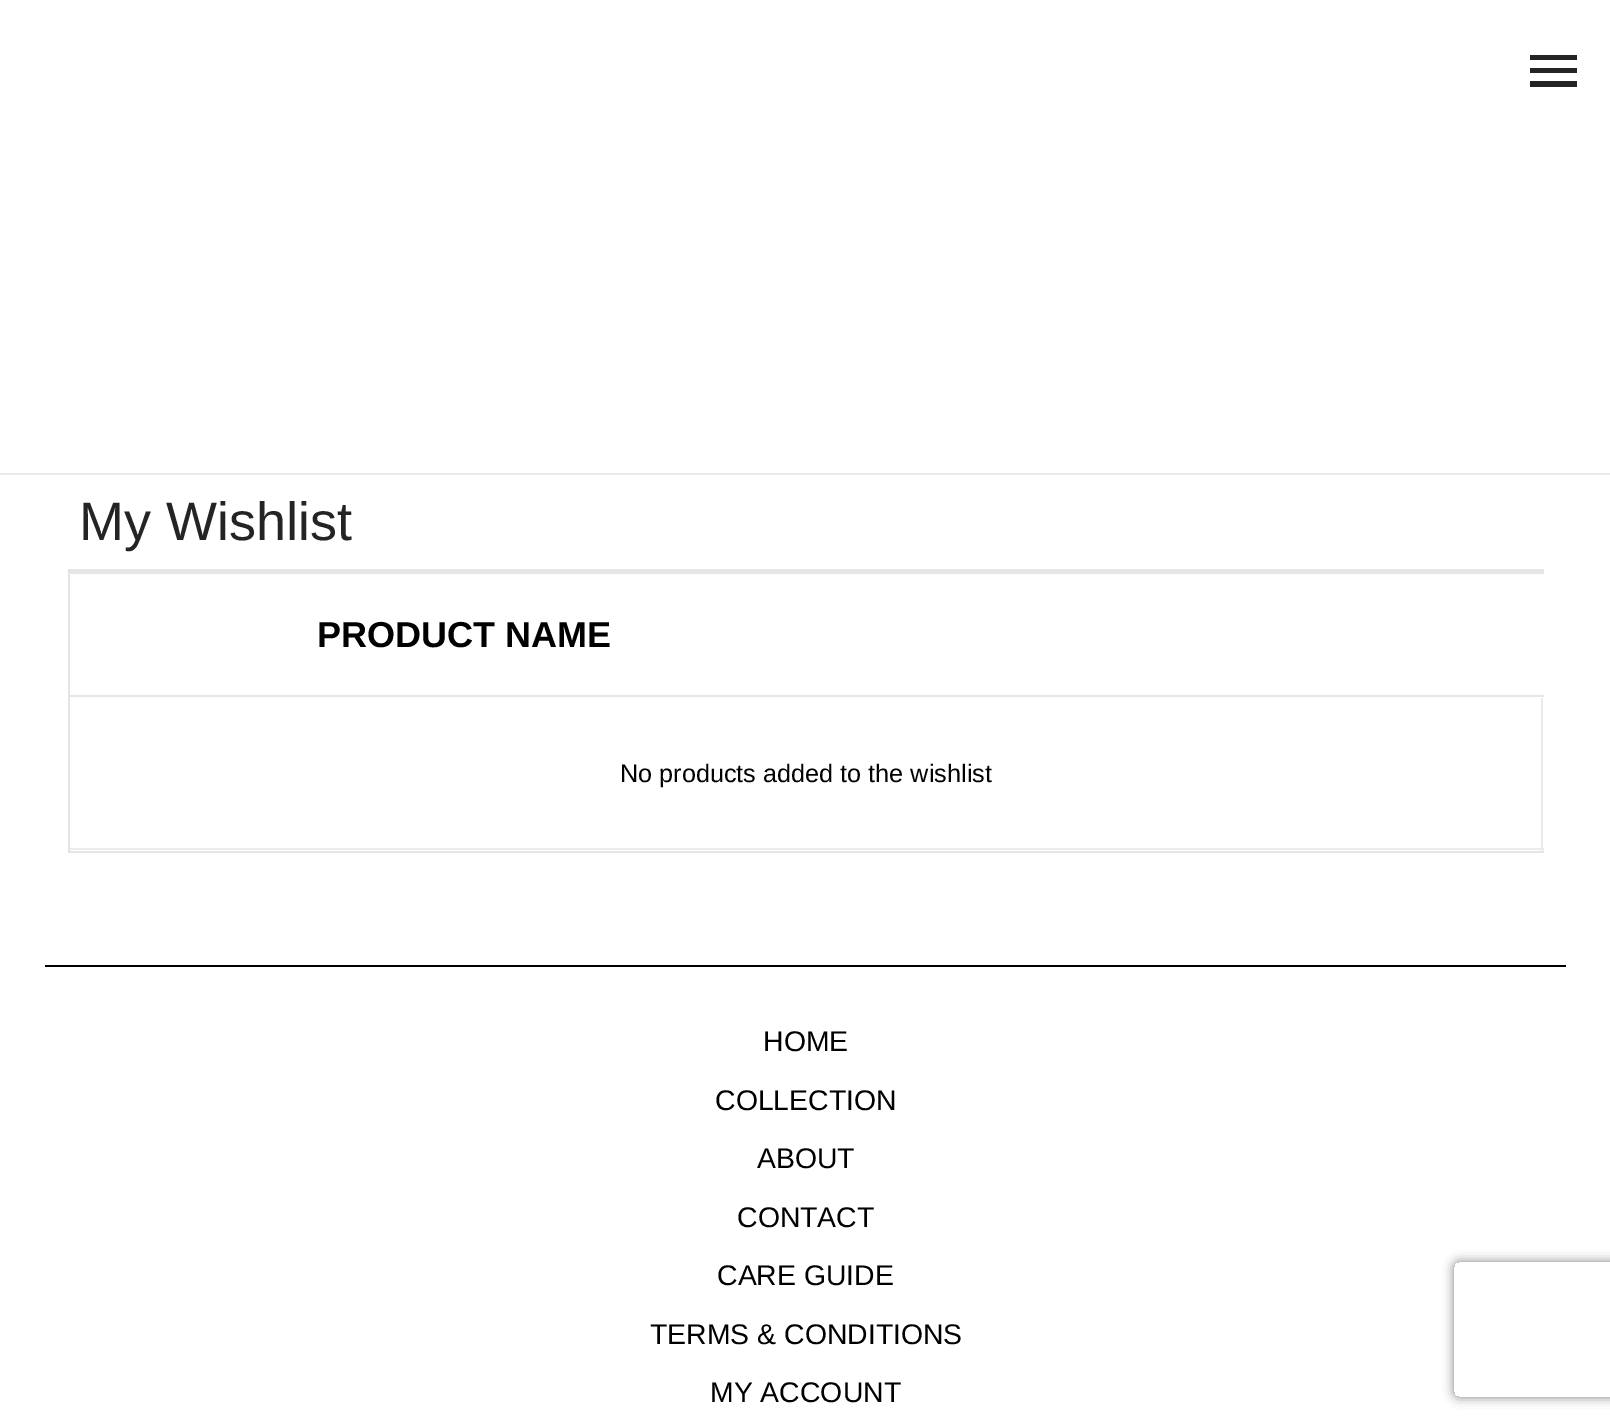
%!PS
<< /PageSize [1610 1428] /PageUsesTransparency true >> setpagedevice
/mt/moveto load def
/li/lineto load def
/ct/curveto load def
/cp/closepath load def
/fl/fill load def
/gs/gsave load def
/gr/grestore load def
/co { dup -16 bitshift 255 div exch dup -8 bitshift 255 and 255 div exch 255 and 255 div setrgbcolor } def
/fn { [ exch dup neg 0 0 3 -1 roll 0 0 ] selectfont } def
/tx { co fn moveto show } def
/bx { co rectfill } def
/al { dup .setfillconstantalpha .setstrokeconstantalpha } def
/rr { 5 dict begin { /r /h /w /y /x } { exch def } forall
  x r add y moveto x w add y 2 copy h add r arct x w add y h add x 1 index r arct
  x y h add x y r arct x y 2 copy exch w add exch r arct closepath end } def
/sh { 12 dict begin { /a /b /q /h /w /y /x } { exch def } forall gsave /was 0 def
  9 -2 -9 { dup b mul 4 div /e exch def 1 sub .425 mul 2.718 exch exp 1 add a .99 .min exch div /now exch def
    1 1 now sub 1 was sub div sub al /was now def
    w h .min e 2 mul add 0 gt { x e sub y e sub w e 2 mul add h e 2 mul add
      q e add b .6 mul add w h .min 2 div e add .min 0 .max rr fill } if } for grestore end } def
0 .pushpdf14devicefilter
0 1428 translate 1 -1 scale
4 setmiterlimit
0 0 1610 1428 16#FFFFFF bx
0 473 1610 2 16#EBEBEB bx
16#242424 co
1530 87 mt 1530 81 li 1577 81 li 1577 87 li cp 1530 73 mt 1530 68 li 1577 68 li 1577 73 li cp 1530 55 mt 1577 55 li 1577 60 li 1530 60 li cp fl
16#E6E6E6 co
68 569 mt 1544 569 li 1544 572 li 70 572 li cp fl
1544 853 mt 68 853 li 70 850 li 1544 850 li cp fl
0.1 al
16#000000 co
68 853 mt 68 569 li 70 572 li 70 850 li cp fl
1 al
70 572 1474 2 16#E7E7E7 bx
70 695 1474 2 16#E7E7E7 bx
70 850 1474 1 16#FFFFFF bx
1541 698 2 153 16#EBEBEB bx
70 848 1474 2 16#EBEBEB bx
45 965 1521 2 16#000000 bx
gs
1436 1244 mt 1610 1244 li 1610 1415 li 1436 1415 li cp 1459 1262 mt 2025 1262 li 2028 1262 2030 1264 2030 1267 ct 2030 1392 li 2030 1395 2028 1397 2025 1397 ct 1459 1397 li 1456 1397 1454 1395 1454 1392 ct 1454 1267 li 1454 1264 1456 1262 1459 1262 ct cp eoclip newpath
16#808080 co
1454 1262 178 135 5 5.5 1 sh
gr
(My Wishlist) 79 540 /LiberationSans-Regular 54 16#242424 tx
(PRODUCT NAME) 317 647 /LiberationSans-Bold 36 16#000000 tx
(No products added to the wishlist) 620 782 /LiberationSans-Regular 25.25 16#000000 tx
(HOME) 763 1051 /LiberationSans-Regular 28.4 16#000000 tx
(COLLECTION) 715 1110 /LiberationSans-Regular 28.4 16#000000 tx
(ABOUT) 757 1168 /LiberationSans-Regular 28.4 16#000000 tx
(CONTACT) 737 1227 /LiberationSans-Regular 28.4 16#000000 tx
(CARE GUIDE) 717 1285 /LiberationSans-Regular 28.4 16#000000 tx
(TERMS & CONDITIONS) 650 1344 /LiberationSans-Regular 28.4 16#000000 tx
(MY ACCOUNT) 710 1402 /LiberationSans-Regular 28.4 16#000000 tx
.poppdf14devicefilter showpage
